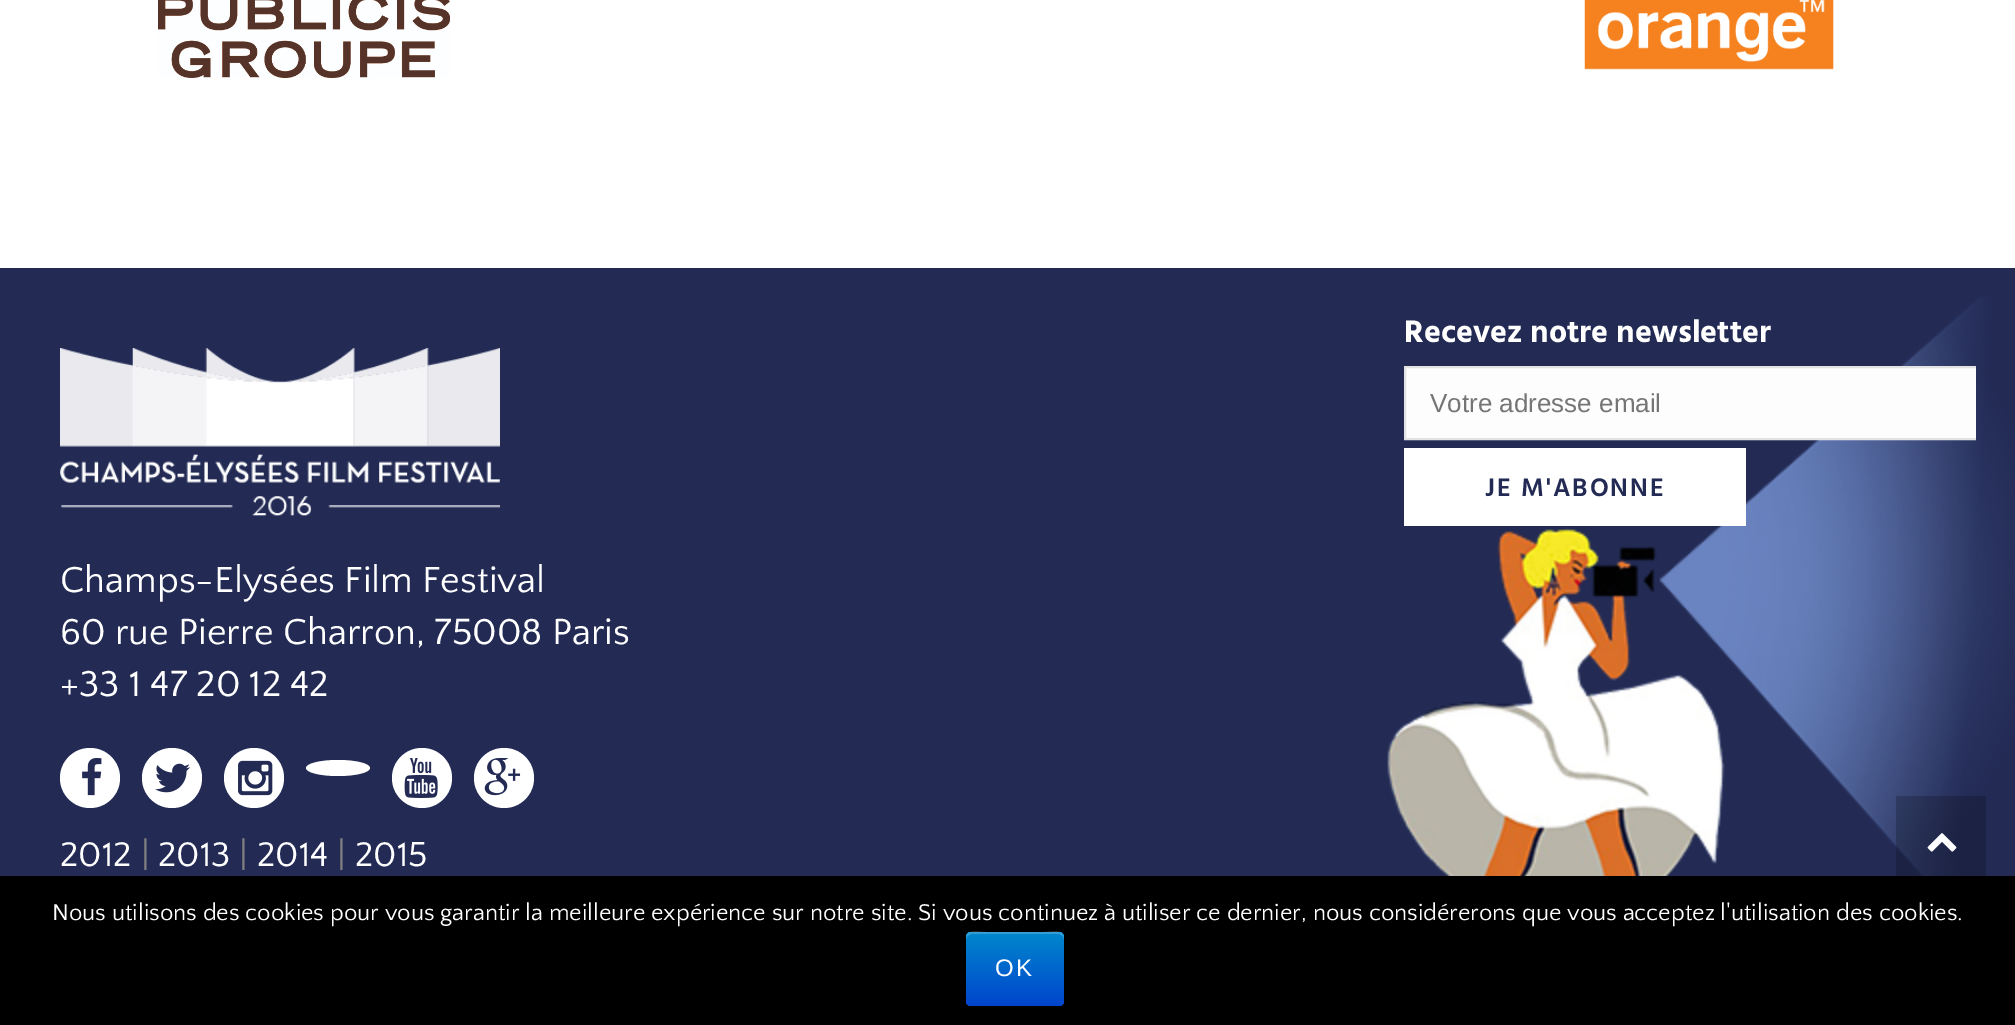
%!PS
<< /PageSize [2015 1025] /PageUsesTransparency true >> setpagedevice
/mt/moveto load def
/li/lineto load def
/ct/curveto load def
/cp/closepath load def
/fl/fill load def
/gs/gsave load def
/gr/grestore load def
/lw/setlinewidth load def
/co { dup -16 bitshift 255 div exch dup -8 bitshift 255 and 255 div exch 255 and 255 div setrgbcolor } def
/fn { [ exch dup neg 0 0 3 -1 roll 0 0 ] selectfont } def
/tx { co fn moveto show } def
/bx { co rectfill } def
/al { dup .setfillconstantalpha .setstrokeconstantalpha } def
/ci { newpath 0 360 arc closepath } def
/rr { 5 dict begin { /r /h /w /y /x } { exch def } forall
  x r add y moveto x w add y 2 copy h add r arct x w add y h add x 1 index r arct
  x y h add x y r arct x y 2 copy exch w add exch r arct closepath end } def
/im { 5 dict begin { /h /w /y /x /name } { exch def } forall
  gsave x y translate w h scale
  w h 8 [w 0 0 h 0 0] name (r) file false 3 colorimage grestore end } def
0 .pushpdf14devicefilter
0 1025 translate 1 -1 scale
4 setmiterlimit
0 0 2015 1025 16#FFFFFF bx
(media/1.raw) 158 0 292 78 im
(media/2.raw) 1584 0 250 70 im
0 268 2015 608 16#232B55 bx
(media/3.raw) 1387 297 628 579 im
1406 368 570 70 16#FDFDFD bx
gs
1404 308 572 218 rectclip
16#E3E3E3 co
2 lw
1405 367 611 72 rectstroke
gr
1404 448 342 78 16#FFFFFF bx
(media/4.raw) 60 348 440 168 im
90 778 30 ci fl
(media/5.raw) 82 758 20 38 im
172 778 30 ci fl
(media/6.raw) 155 763 35 30 im
254 778 30 ci fl
(media/7.raw) 238 760 35 36 im
338 760 mt 355.5 760 370 763.5 370 768 ct 370 772.5 355.5 776 338 776 ct 320.5 776 306 772.5 306 768 ct 306 763.5 320.5 760 338 760 ct cp fl
422 778 30 ci fl
(media/8.raw) 404 758 34 40 im
504 778 30 ci fl
(media/9.raw) 484 758 37 38 im
0.2 al
1896 796 90 80 16#000000 bx
1 al
(media/10.raw) 1927 833 30 19 im
0 876 2015 149 16#000000 bx
gs 966 932 98 74 6 rr clip newpath
<< /ShadingType 2 /ColorSpace /DeviceRGB /Coords [1015 932 1015 1006] /Extend [true true] /Function << /FunctionType 2 /Domain [0 1] /C0 [0 .533 .8] /C1 [0 .267 .8] /N 1 >> >> shfill gr
0.2 al
16#FFFFFF co
972 934 mt 1058 934 li 1061 934 1064 937 1064 940 ct 1064 928 1053 932 1044 932 ct 986 932 li 977 932 966 928 966 940 ct 966 937 969 934 972 934 ct cp fl
1 al
(Recevez notre newsletter) 1404 342 /HindVadodara-Bold 32 16#FFFFFF tx
(Votre adresse email) 1430 412 /LiberationSans-Regular 26 16#757575 tx
/HindVadodara-SemiBold 26 fn
16#232B55 co
1485 496 mt 2 0 (JE M'ABONNE) ashow
(Champs-Elysées Film Festival) 60 592 /QuattrocentoSans-Regular 38 16#FFFFFF tx
(60 rue Pierre Charron, 75008 Paris) 60 644 /QuattrocentoSans-Regular 38 16#FFFFFF tx
(+33 1 47 20 12 42) 60 696 /QuattrocentoSans-Regular 38 16#FFFFFF tx
(2012) 60 866 /QuattrocentoSans-Regular 36 16#FFFFFF tx
(|) 141 866 /QuattrocentoSans-Regular 36 16#808080 tx
(2013) 158 866 /QuattrocentoSans-Regular 36 16#FFFFFF tx
(|) 239 866 /QuattrocentoSans-Regular 36 16#808080 tx
(2014) 257 866 /QuattrocentoSans-Regular 36 16#FFFFFF tx
(|) 337 866 /QuattrocentoSans-Regular 36 16#808080 tx
(2015) 355 866 /QuattrocentoSans-Regular 36 16#FFFFFF tx
(Nous utilisons des cookies pour vous garantir la meilleure expérience sur notre site. Si vous continuez à utiliser ce dernier, nous considérerons que vous acceptez l'utilisation des cookies.) 52 920 /QuattrocentoSans-Regular 24 16#FFFFFF tx
/LiberationSans-Regular 24 fn
995 976 mt 2 0 (OK) ashow
.poppdf14devicefilter showpage
